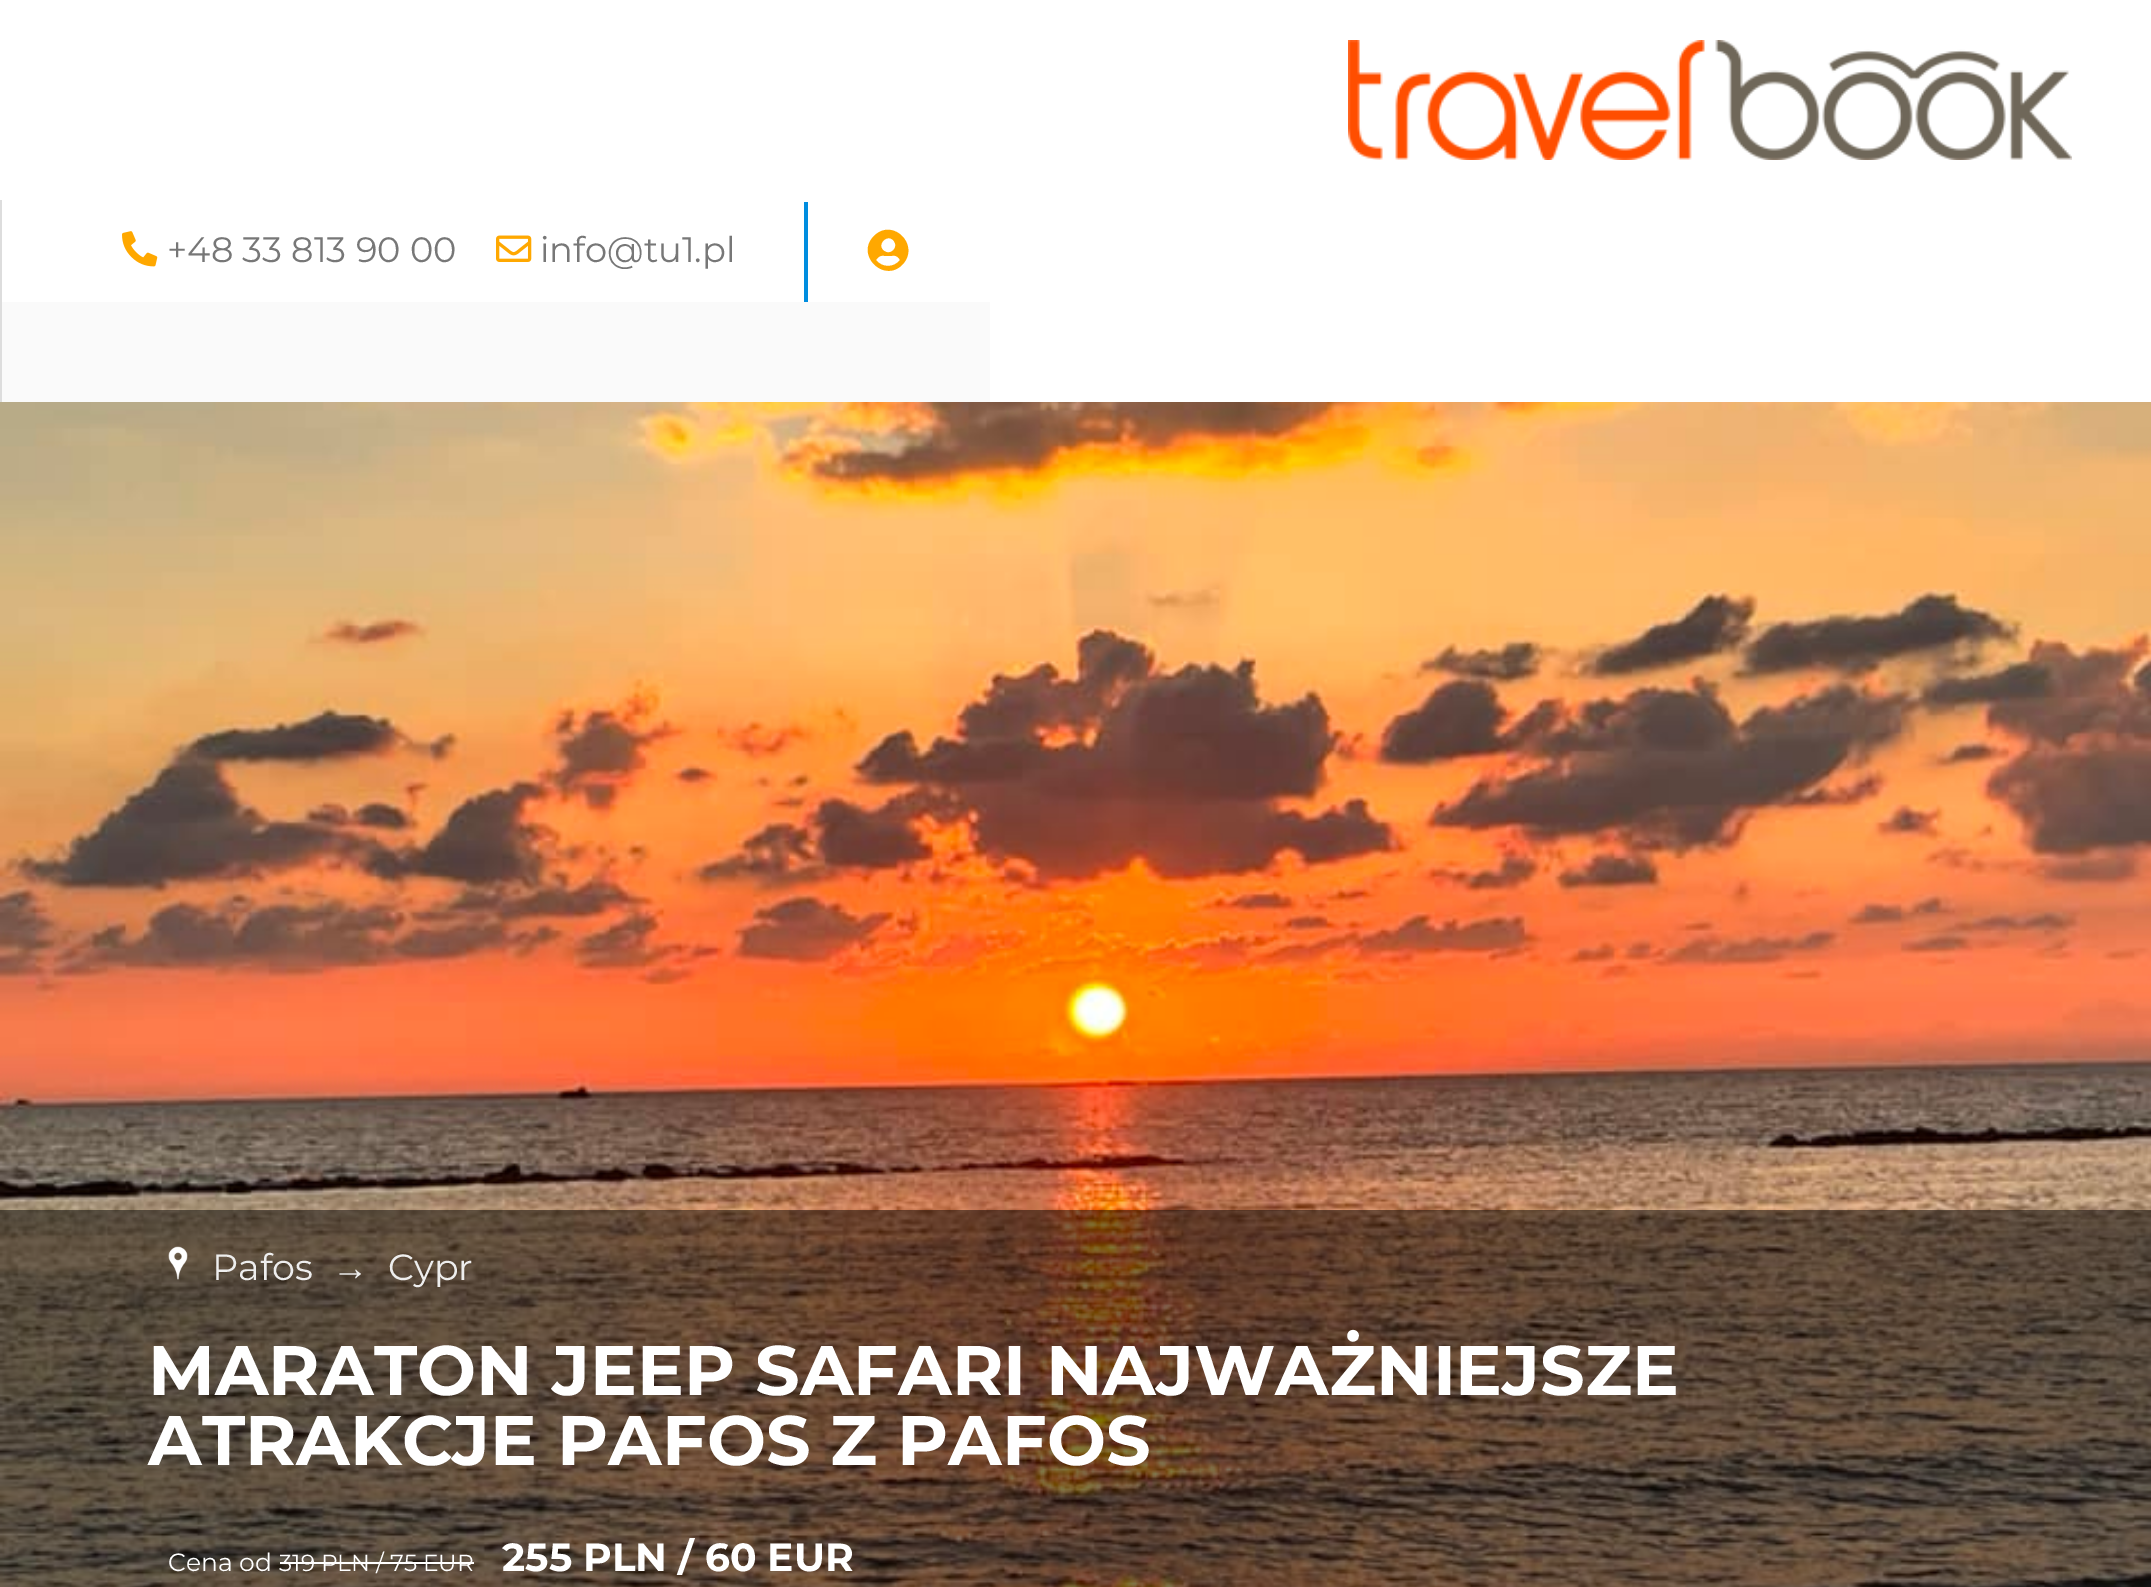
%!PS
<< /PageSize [2151 1587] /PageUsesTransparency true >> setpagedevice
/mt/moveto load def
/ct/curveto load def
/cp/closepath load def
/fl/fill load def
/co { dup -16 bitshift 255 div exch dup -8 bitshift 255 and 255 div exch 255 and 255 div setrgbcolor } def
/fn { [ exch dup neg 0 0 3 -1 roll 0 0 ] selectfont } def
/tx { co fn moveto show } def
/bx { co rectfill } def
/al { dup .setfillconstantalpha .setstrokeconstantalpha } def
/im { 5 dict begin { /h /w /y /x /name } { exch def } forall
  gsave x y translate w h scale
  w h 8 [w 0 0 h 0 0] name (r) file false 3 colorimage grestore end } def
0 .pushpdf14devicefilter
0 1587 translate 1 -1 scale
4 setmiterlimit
0 0 2151 1587 16#FFFFFF bx
(media/1.raw) 1348 40 724 120 im
0 200 2 202 16#DDDDDD bx
(media/2.raw) 122 231 36 36 im
(media/3.raw) 496 235 36 27 im
804 202 4 100 16#008DDF bx
16#FFA800 co
874 236 mt 893 217 921 246 902 265 ct 884 283 855 255 874 236 ct cp 893 240 mt 887 234 877 244 883 250 ct 890 257 900 247 893 240 ct cp 876 260 mt 882 268 894 268 900 260 ct 897 254 893 256 888 256 ct 883 256 880 254 876 260 ct cp fl
2 302 988 100 16#FAFAFA bx
(media/4.raw) 0 402 2151 1185 im
0.5 al
0 1210 2151 377 16#000000 bx
1 al
(media/5.raw) 168 1246 20 34 im
280 1562 194 2 16#FFFFFF bx
(+48 33 813 90 00) 167 262 /Montserrat-Regular 35.25 16#777777 tx
(info@tu1.pl) 540 262 /Montserrat-Regular 35.25 16#777777 tx
(Pafos) 212 1280 /Montserrat-Regular 36.5 16#EEEEEE tx
(→) 332 1280 /LiberationSans-Regular 36.5 16#EEEEEE tx
(Cypr) 388 1280 /Montserrat-Regular 36.5 16#EEEEEE tx
(MARATON JEEP SAFARI NAJWAŻNIEJSZE) 148 1395 /Montserrat-Bold 70 16#FFFFFF tx
(ATRAKCJE PAFOS Z PAFOS) 148 1465 /Montserrat-Bold 70 16#FFFFFF tx
(Cena od) 168 1571 /Montserrat-Regular 25 16#FFFFFF tx
(319 PLN / 75 EUR) 279 1571 /Montserrat-Regular 23.25 16#FFFFFF tx
(255 PLN / 60 EUR) 502 1571 /Montserrat-Bold 39.25 16#FFFFFF tx
.poppdf14devicefilter showpage
